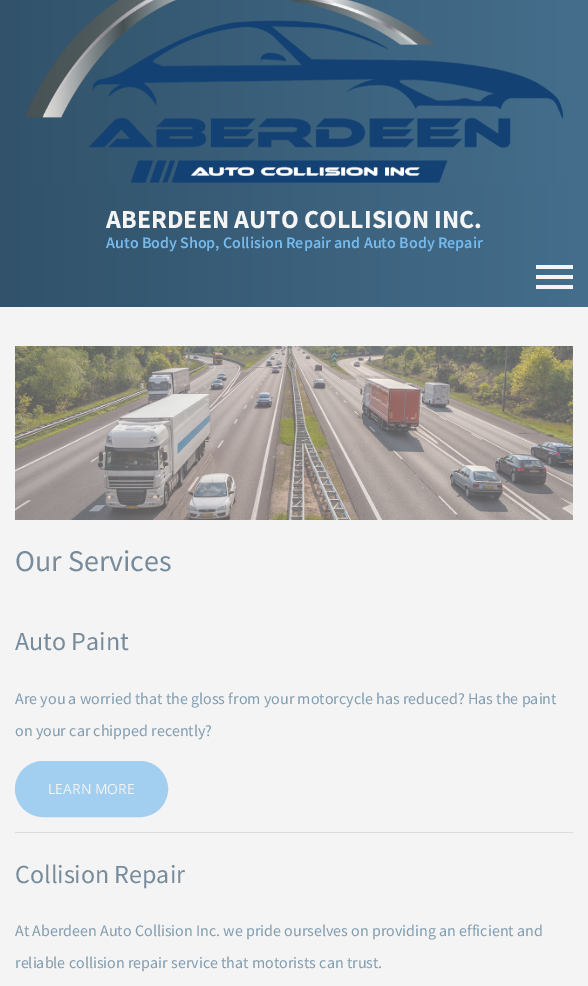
%!PS
<< /PageSize [588 986] >> setpagedevice
/mt/moveto load def
/li/lineto load def
/cp/closepath load def
/fl/fill load def
/st/stroke load def
/gs/gsave load def
/gr/grestore load def
/lw/setlinewidth load def
/co { dup -16 bitshift 255 div exch dup -8 bitshift 255 and 255 div exch 255 and 255 div setrgbcolor } def
/fn { [ exch dup neg 0 0 3 -1 roll 0 0 ] selectfont } def
/tx { co fn moveto show } def
/bx { co rectfill } def
/rr { 5 dict begin { /r /h /w /y /x } { exch def } forall
  x r add y moveto x w add y 2 copy h add r arct x w add y h add x 1 index r arct
  x y h add x y r arct x y 2 copy exch w add exch r arct closepath end } def
/im { 5 dict begin { /h /w /y /x /name } { exch def } forall
  gsave x y translate w h scale
  w h 8 [w 0 0 h 0 0] name (r) file false 3 colorimage grestore end } def
0 986 translate 1 -1 scale
4 setmiterlimit
0 0 588 986 16#F4F4F4 bx
gs 0 0 mt 588 0 li 588 307 li 0 307 li cp clip newpath
<< /ShadingType 2 /ColorSpace /DeviceRGB /Coords [0 96 588 96] /Extend [true true] /Function << /FunctionType 2 /Domain [0 1] /C0 [.192 .322 .416] /C1 [.267 .431 .549] /N 1 >> >> shfill gr
(media/1.raw) 25 0 539 183 im
536 285 37 4 16#F4F4F4 bx
536 275 37 4 16#F4F4F4 bx
536 265 37 4 16#F4F4F4 bx
(media/2.raw) 15 346 558 174 im
15 832 558 1 16#DCDCDC bx
16#A2CFEF co
16.5 762.5 150 53 26.5 rr gs fl gr
3 lw
st
(ABERDEEN AUTO COLLISION INC.) 106 228 /SourceSansPro-Bold 26 16#F4F4F4 tx
(Auto Body Shop, Collision Repair and Auto Body Repair) 106 248 /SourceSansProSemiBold-SemiBold 16 16#76BBED tx
(Our Services) 15 571 /SourceSansPro-Regular 30 16#768B9B tx
(Auto Paint) 15 650 /SourceSansPro-Regular 26 16#768B9B tx
(Are you a worried that the gloss from your motorcycle has reduced? Has the paint) 15 704 /SourceSansPro-Regular 16 16#829DB1 tx
(on your car chipped recently?) 15 736 /SourceSansPro-Regular 16 16#829DB1 tx
(LEARN MORE) 48 794 /OpenSans-Regular 14 16#F4F4F4 tx
(Collision Repair) 15 883 /SourceSansPro-Regular 26 16#768B9B tx
(At Aberdeen Auto Collision Inc. we pride ourselves on providing an efficient and) 15 936 /SourceSansPro-Regular 16 16#829DB1 tx
(reliable collision repair service that motorists can trust.) 15 968 /SourceSansPro-Regular 16 16#829DB1 tx
showpage
